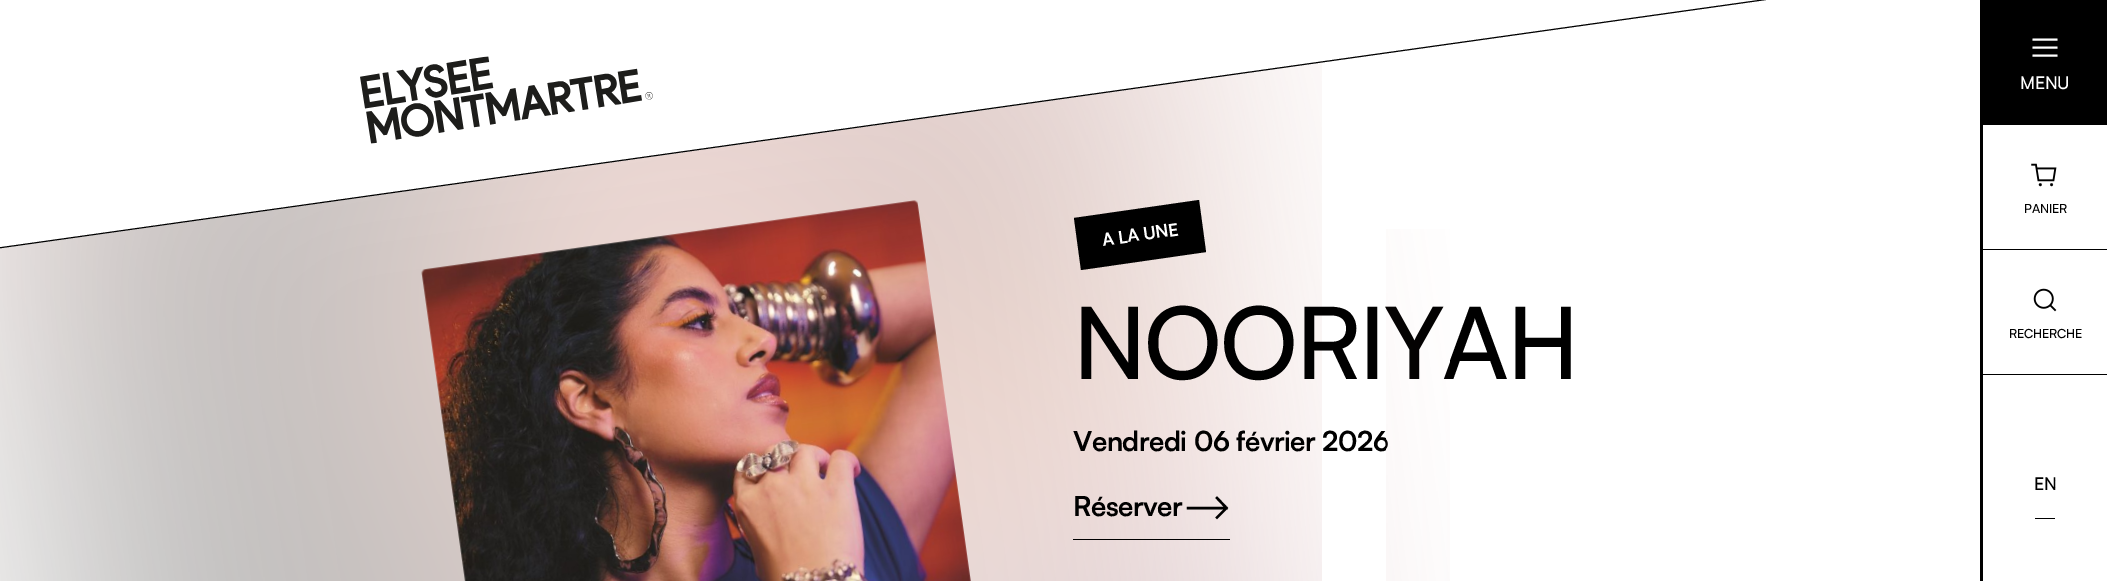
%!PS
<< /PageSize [2107 581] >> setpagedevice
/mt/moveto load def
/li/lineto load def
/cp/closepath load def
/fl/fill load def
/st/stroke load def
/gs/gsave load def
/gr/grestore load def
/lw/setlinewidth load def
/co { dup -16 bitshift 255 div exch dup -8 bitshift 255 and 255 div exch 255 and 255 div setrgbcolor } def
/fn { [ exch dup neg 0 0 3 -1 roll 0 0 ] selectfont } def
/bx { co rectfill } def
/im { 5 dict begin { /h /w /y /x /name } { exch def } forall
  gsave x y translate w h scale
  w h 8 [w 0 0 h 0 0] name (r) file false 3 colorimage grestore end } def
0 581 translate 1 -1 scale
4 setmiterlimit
0 0 2107 581 16#FFFFFF bx
(media/1.raw) 0 62 1322 519 im
(media/2.raw) 421 200 550 381 im
16#000000 co
1074 218 mt 1199 200 li 1206 252 li 1081 270 li cp fl
1073 539 157 1 16#000000 bx
2.4 lw
2 setlinecap
1188 508 mt 1226.5 508 li 1226.5 508 mt 1217 498 li 1226.5 508 mt 1217 517.5 li st
1980 0 3 581 16#000000 bx
1983 0 124 125 16#000000 bx
16#FFFFFF co
1.9 lw
2033.5 47.5 mt 2056.5 47.5 li 2033.5 39.5 mt 2056.5 39.5 li 2033.5 55.5 mt 2056.5 55.5 li st
1983 249 124 1 16#000000 bx
(media/5.raw) 2031 163 26 24 im
1983 374 124 1 16#000000 bx
(media/6.raw) 2033 288 24 24 im
2035 518 20 1 16#000000 bx
/Satoshi-Bold 17.5 fn
16#FFFFFF co
gs 1103 246 translate -8 rotate 0 0 mt -.25 0 (A LA UNE) ashow gr
/Satoshi-Medium 100 fn
16#000000 co
1073 379 mt -2 0 (NOORIYAH) ashow
/Satoshi-Bold 27.5 fn
1073 451 mt -.5 0 (Vendredi 06 février 2026) ashow
1073 516 mt -.5 0 (Réserver) ashow
(media/3.raw) 1386 229 64 352 im
16#FFFFFF co
-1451 -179 mt 1679 -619 li 1766 0 li -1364 440 li cp fl
16#000000 co
-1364 439 mt 1766 -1 li 1766 0 li -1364 440 li cp fl
(media/4.raw) 360 56 293 88 im
/Satoshi-Medium 17.5 fn
16#FFFFFF co
2020 89 mt -.25 0 (MENU) ashow
/Satoshi-Medium 12.5 fn
16#000000 co
2024 213 mt -.25 0 (PANIER) ashow
2009 338 mt -.25 0 (RECHERCHE) ashow
/Satoshi-Medium 17.5 fn
2034 490 mt -.25 0 (EN) ashow
showpage
